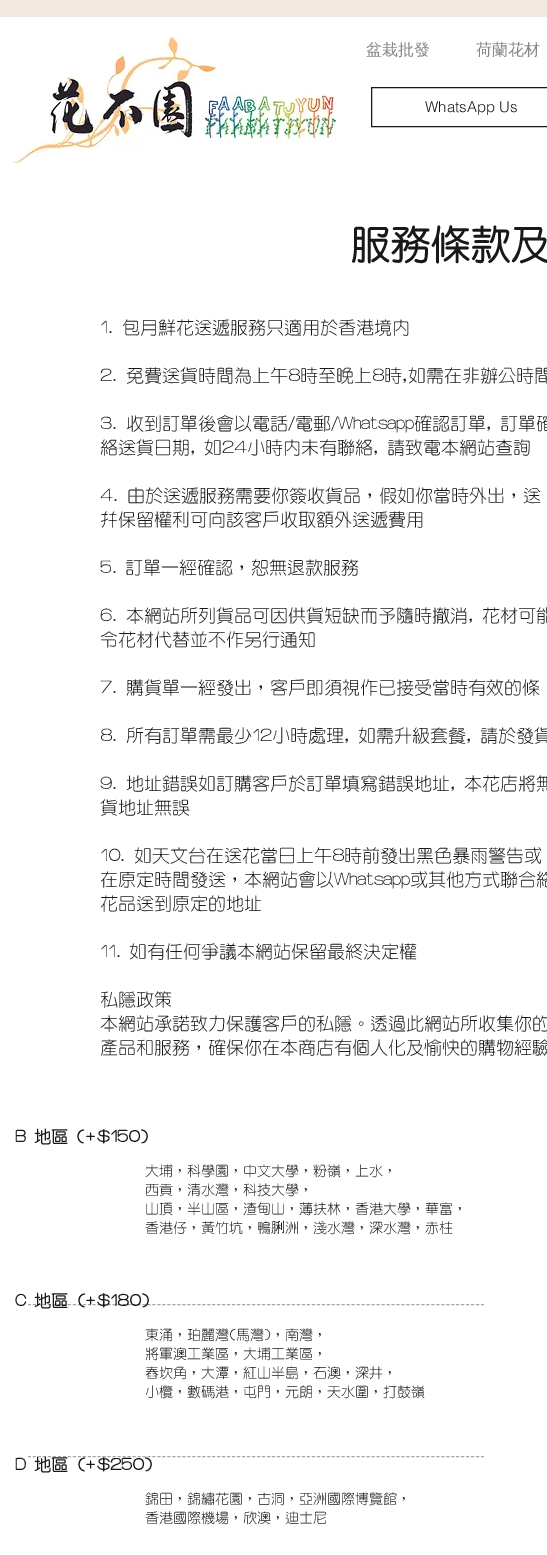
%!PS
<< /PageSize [547 1555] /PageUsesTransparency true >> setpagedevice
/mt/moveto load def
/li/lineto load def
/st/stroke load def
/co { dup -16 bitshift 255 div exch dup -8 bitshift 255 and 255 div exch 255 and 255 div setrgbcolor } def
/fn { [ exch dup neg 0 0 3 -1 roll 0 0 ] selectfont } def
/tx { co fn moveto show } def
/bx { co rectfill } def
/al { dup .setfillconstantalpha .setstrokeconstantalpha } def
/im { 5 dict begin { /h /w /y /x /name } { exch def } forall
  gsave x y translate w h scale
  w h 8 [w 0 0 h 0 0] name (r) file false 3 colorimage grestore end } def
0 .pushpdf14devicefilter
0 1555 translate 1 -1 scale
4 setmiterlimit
0 0 547 1555 16#FFFFFF bx
0 0 547 17 16#F2E9E1 bx
(media/1.raw) 13 37 324 126 im
16#181818 co
371.5 87.5 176 39 rectstroke
16#A6A6A6 co
[3 1.98] 0 setdash
28 1456.5 mt 484 1456.5 li st
(盆栽批發) 366 55 /WenQuanYiZenHei-Medium 16 16#858585 tx
(荷蘭花材) 476 55 /WenQuanYiZenHei-Medium 16 16#858585 tx
(WhatsApp Us) 425 112 /helvetica-Light 15 16#181818 tx
(服務條款及) 350 257 /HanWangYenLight-Bold 40 16#181818 tx
(1. 包月鮮花送遞服務只適用於香港境內) 100 333 /HanWangYenLight-Light 18 16#181818 tx
(2. 免費送貨時間為上午8時至晚上8時,如需在非辦公時間) 100 381 /HanWangYenLight-Light 18 16#181818 tx
(3. 收到訂單後會以電話/電郵/Whatsapp確認訂單, 訂單確) 100 429 /HanWangYenLight-Light 18 16#181818 tx
(絡送貨日期, 如24小時內未有聯絡, 請致電本網站查詢) 100 453 /HanWangYenLight-Light 18 16#181818 tx
(4. 由於送遞服務需要你簽收貨品，假如你當時外出，送) 100 501 /HanWangYenLight-Light 18 16#181818 tx
(并保留權利可向該客戶收取額外送遞費用) 100 525 /HanWangYenLight-Light 18 16#181818 tx
(5. 訂單一經確認，恕無退款服務) 100 573 /HanWangYenLight-Light 18 16#181818 tx
(6. 本網站所列貨品可因供貨短缺而予隨時撤消, 花材可能) 100 621 /HanWangYenLight-Light 18 16#181818 tx
(令花材代替並不作另行通知) 100 645 /HanWangYenLight-Light 18 16#181818 tx
(7. 購貨單一經發出，客戶即須視作已接受當時有效的條) 100 693 /HanWangYenLight-Light 18 16#181818 tx
(8. 所有訂單需最少12小時處理, 如需升級套餐, 請於發貨) 100 741 /HanWangYenLight-Light 18 16#181818 tx
(9. 地址錯誤如訂購客戶於訂單填寫錯誤地址, 本花店將無) 100 789 /HanWangYenLight-Light 18 16#181818 tx
(貨地址無誤) 100 813 /HanWangYenLight-Light 18 16#181818 tx
(10. 如天文台在送花當日上午8時前發出黑色暴雨警告或) 100 861 /HanWangYenLight-Light 18 16#181818 tx
(在原定時間發送，本網站會以Whatsapp或其他方式聯合絡) 100 885 /HanWangYenLight-Light 18 16#181818 tx
(花品送到原定的地址) 100 909 /HanWangYenLight-Light 18 16#181818 tx
(11. 如有任何爭議本網站保留最終決定權) 100 957 /HanWangYenLight-Light 18 16#181818 tx
(私隱政策) 100 1005 /HanWangYenLight-Light 18 16#181818 tx
(本網站承諾致力保護客戶的私隱。透過此網站所收集你的) 100 1029 /HanWangYenLight-Light 18 16#181818 tx
(產品和服務，確保你在本商店有個人化及愉快的購物經驗) 100 1053 /HanWangYenLight-Light 18 16#181818 tx
(B 地區 \(+$150\)) 15 1142 /HanWangYenLight-Bold 17 16#181818 tx
(大埔，科學園，中文大學，粉嶺，上水，) 145 1175 /HanWangYenLight-Light 14 16#181818 tx
(西貢，清水灣，科技大學，) 145 1194 /HanWangYenLight-Light 14 16#181818 tx
(山頂，半山區，渣甸山，薄扶林，香港大學，華富，) 145 1213 /HanWangYenLight-Light 14 16#181818 tx
(香港仔，黃竹坑，鴨) 145 1232 /HanWangYenLight-Light 14 16#181818 tx
(脷) 271 1232 /WenQuanYiZenHei-Medium 14 16#181818 tx
(洲，淺水灣，深水灣，赤柱) 285 1232 /HanWangYenLight-Light 14 16#181818 tx
(C 地區 \(+$180\)) 15 1306 /HanWangYenLight-Bold 17 16#181818 tx
(東涌，珀麗灣\(馬灣\)，南灣，) 145 1339 /HanWangYenLight-Light 14 16#181818 tx
(將軍澳工業區，大埔工業區，) 145 1358 /HanWangYenLight-Light 14 16#181818 tx
(舂坎角，大潭，紅山半島，石澳，深井，) 145 1377 /HanWangYenLight-Light 14 16#181818 tx
(小欖，數碼港，屯門，元朗，天水圍，打鼓嶺) 145 1396 /HanWangYenLight-Light 14 16#181818 tx
(D 地區 \(+$250\)) 15 1470 /HanWangYenLight-Bold 17 16#181818 tx
(錦田，錦繡花園，古洞，亞洲國際博覽館，) 145 1503 /HanWangYenLight-Light 14 16#181818 tx
(香港國際機場，欣澳，迪士尼) 145 1522 /HanWangYenLight-Light 14 16#181818 tx
0.35 al
16#000000 co
28 1304.5 mt 484 1304.5 li st
.poppdf14devicefilter showpage
